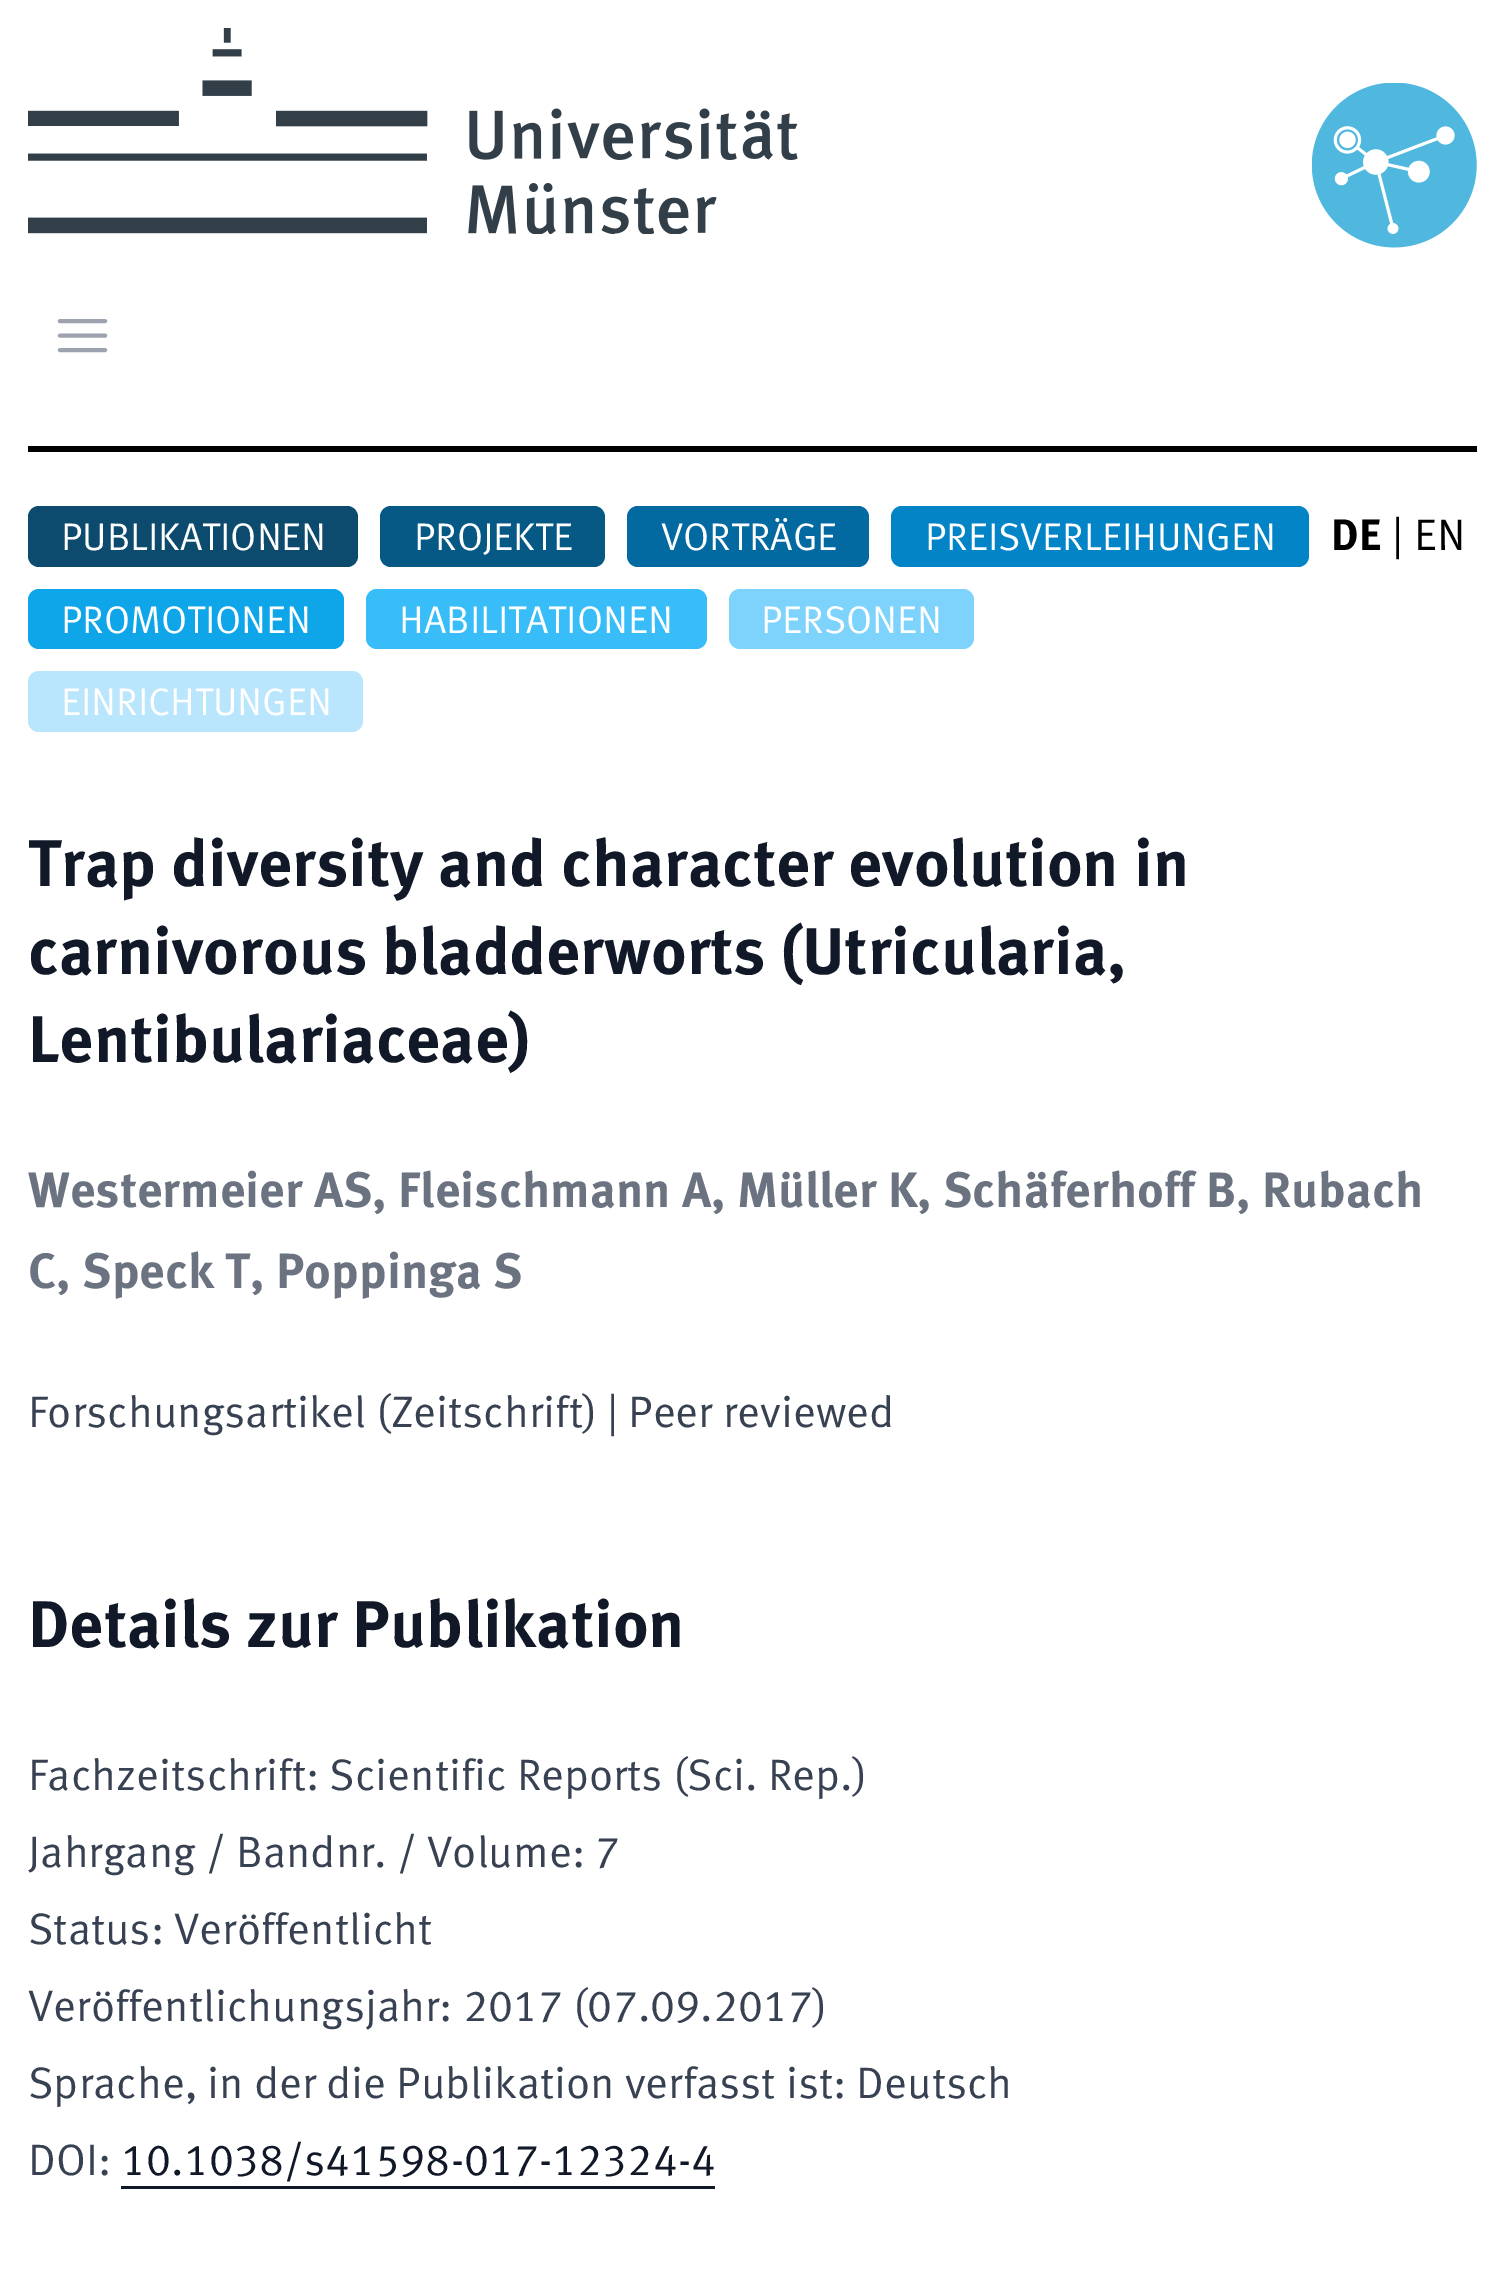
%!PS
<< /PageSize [1502 2276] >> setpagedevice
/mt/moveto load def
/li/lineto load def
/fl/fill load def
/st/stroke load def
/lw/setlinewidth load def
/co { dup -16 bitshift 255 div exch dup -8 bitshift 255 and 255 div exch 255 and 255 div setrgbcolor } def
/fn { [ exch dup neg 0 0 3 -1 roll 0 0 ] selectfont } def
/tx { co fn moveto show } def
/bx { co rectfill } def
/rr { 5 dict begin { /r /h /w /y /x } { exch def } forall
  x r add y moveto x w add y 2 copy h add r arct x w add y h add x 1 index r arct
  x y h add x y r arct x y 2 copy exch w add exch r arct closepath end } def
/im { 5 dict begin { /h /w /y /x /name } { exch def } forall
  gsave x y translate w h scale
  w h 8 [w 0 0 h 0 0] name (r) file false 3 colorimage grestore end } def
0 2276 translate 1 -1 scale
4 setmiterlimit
0 0 1502 2276 16#FFFFFF bx
28 446 1449 6 16#000000 bx
(media/1.raw) 28 28 770 206 im
(media/2.raw) 1312 83 165 165 im
16#9CA3AF co
4.1 lw
1 setlinecap
1 setlinejoin
60 321 mt 105 321 li 60 335.5 mt 105 335.5 li 60 350 mt 105 350 li st
16#0C4A6E co
28 506 330 61 11 rr fl
16#075985 co
380 506 225 61 11 rr fl
16#0369A1 co
627 506 242 61 11 rr fl
16#0284C7 co
891 506 418 61 11 rr fl
16#0EA5E9 co
28 589 316 60 11 rr fl
16#38BDF8 co
366 589 341 60 11 rr fl
16#7DD3FC co
729 589 245 60 11 rr fl
16#BAE6FD co
28 671 335 61 11 rr fl
121 2186 594 3 16#111827 bx
(PUBLIKATIONEN) 61 550 /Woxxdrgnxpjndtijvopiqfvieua-Regular 38.5 16#FFFFFF tx
(PROJEKTE) 414 550 /Woxxdrgnxpjndtijvopiqfvieua-Regular 38.5 16#FFFFFF tx
(VORTRÄGE) 661 550 /Woxxdrgnxpjndtijvopiqfvieua-Regular 38.5 16#FFFFFF tx
(PREISVERLEIHUNGEN) 925 550 /Woxxdrgnxpjndtijvopiqfvieua-Regular 38.5 16#FFFFFF tx
(PROMOTIONEN) 61 633 /Woxxdrgnxpjndtijvopiqfvieua-Regular 38.5 16#FFFFFF tx
(HABILITATIONEN) 399 633 /Woxxdrgnxpjndtijvopiqfvieua-Regular 38.5 16#FFFFFF tx
(PERSONEN) 761 633 /Woxxdrgnxpjndtijvopiqfvieua-Regular 38.5 16#FFFFFF tx
(EINRICHTUNGEN) 61 715 /Woxxdrgnxpjndtijvopiqfvieua-Regular 38.5 16#FFFFFF tx
(DE) 1331 550 /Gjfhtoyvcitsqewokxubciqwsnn-Bold 44 16#000000 tx
(|) 1392 550 /Woxxdrgnxpjndtijvopiqfvieua-Regular 44 16#000000 tx
(EN) 1414 550 /Woxxdrgnxpjndtijvopiqfvieua-Regular 44 16#000000 tx
(Trap diversity and character evolution in) 28 886 /Gjfhtoyvcitsqewokxubciqwsnn-Bold 66 16#111827 tx
(carnivorous bladderworts \(Utricularia,) 28 974 /Gjfhtoyvcitsqewokxubciqwsnn-Bold 66 16#111827 tx
(Lentibulariaceae\)) 28 1062 /Gjfhtoyvcitsqewokxubciqwsnn-Bold 66 16#111827 tx
(Westermeier AS, Fleischmann A, Müller K, Schäferhoff B, Rubach) 28 1207 /Gjfhtoyvcitsqewokxubciqwsnn-Bold 49.5 16#6B7280 tx
(C, Speck T, Poppinga S) 28 1288 /Gjfhtoyvcitsqewokxubciqwsnn-Bold 49.5 16#6B7280 tx
(Forschungsartikel \(Zeitschrift\) | Peer reviewed) 28 1427 /Woxxdrgnxpjndtijvopiqfvieua-Regular 44 16#374151 tx
(Details zur Publikation) 28 1647 /Gjfhtoyvcitsqewokxubciqwsnn-Bold 66 16#111827 tx
(Fachzeitschrift: Scientific Reports \(Sci. Rep.\)) 28 1790 /Woxxdrgnxpjndtijvopiqfvieua-Regular 44 16#374151 tx
(Jahrgang / Bandnr. / Volume: 7) 28 1867 /Woxxdrgnxpjndtijvopiqfvieua-Regular 44 16#374151 tx
(Status: Veröffentlicht) 28 1944 /Woxxdrgnxpjndtijvopiqfvieua-Regular 44 16#374151 tx
(Veröffentlichungsjahr: 2017 \(07.09.2017\)) 28 2021 /Woxxdrgnxpjndtijvopiqfvieua-Regular 44 16#374151 tx
(Sprache, in der die Publikation verfasst ist: Deutsch) 28 2098 /Woxxdrgnxpjndtijvopiqfvieua-Regular 44 16#374151 tx
(DOI:) 28 2175 /Woxxdrgnxpjndtijvopiqfvieua-Regular 44 16#374151 tx
(10.1038/s41598-017-12324-4) 121 2175 /Woxxdrgnxpjndtijvopiqfvieua-Regular 44 16#111827 tx
showpage
